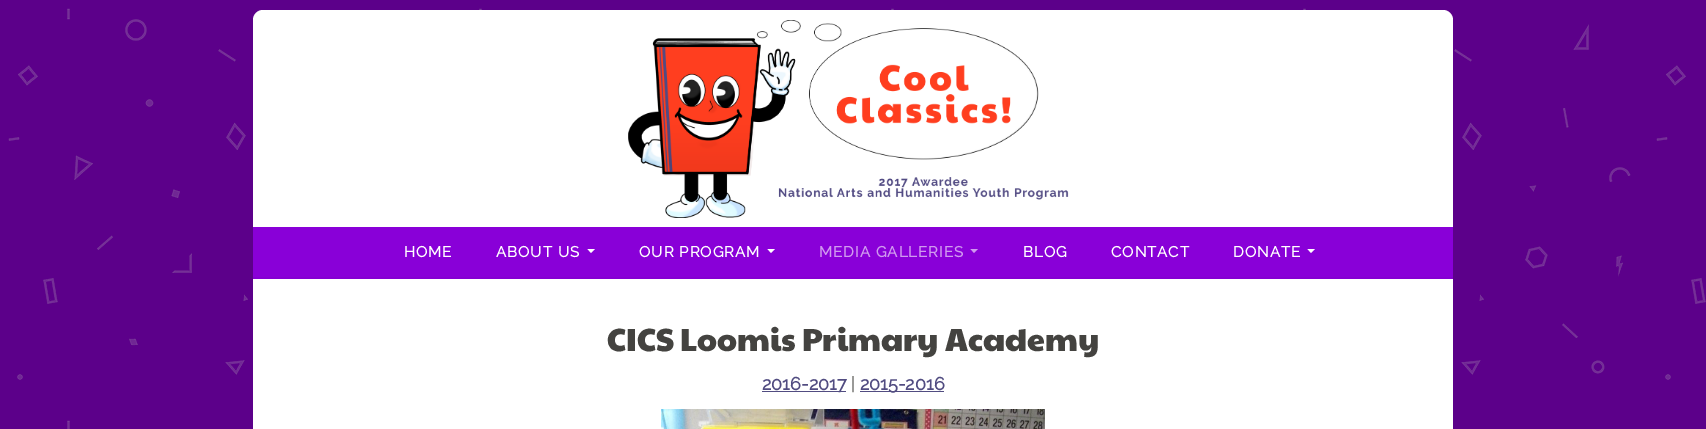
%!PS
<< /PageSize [1706 429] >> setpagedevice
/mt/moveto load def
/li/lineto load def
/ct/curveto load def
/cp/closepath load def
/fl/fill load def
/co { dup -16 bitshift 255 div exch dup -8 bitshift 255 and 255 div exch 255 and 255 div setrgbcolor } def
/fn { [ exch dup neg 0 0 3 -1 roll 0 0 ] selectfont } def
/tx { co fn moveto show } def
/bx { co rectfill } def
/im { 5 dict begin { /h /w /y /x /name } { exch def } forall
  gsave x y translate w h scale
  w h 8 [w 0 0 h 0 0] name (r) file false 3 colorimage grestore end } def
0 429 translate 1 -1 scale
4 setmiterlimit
0 0 1706 429 16#5C008A bx
(media/1.raw) 8 8 1698 421 im
16#FFFFFF co
263 10 mt 1443 10 li 1448.5 10 1453 14.5 1453 20 ct 1453 227 li 253 227 li 253 20 li 253 14.5 257.5 10 263 10 ct cp fl
(media/2.raw) 628 20 441 198 im
253 227 1200 50 16#8900D8 bx
253 277 1200 2 16#8500D2 bx
16#FFFFFF co
587.5 249 mt 595 249 li 591 253 li cp fl
767.5 249 mt 775 249 li 771 253 li cp fl
16#D099EF co
970.5 249 mt 978 249 li 974 253 li cp fl
16#FFFFFF co
1307.5 249 mt 1315 249 li 1311 253 li cp fl
253 279 1200 150 16#FFFFFF bx
762 391 84 1 16#514C81 bx
860 391 84 1 16#514C81 bx
(media/3.raw) 661 409 384 20 im
/Raleway-Bold 15 fn
16#FFFFFF co
404 257 mt 1 0 (HOME) ashow
496 257 mt 1 0 (ABOUT US) ashow
639 257 mt 1 0 (OUR PROGRAM) ashow
16#D099EF co
819 257 mt 1 0 (MEDIA GALLERIES) ashow
16#FFFFFF co
1023 257 mt 1 0 (BLOG) ashow
1111 257 mt 1 0 (CONTACT) ashow
1233 257 mt 1 0 (DONATE) ashow
(CICS Loomis Primary Academy) 607 351 /PaytoneOne-Regular 32 16#444340 tx
(2016-2017) 762 390 /Raleway-Bold 18 16#514C81 tx
(|) 851 390 /Raleway-Thin 18 16#444340 tx
(2015-2016) 860 390 /Raleway-Bold 18 16#514C81 tx
showpage
